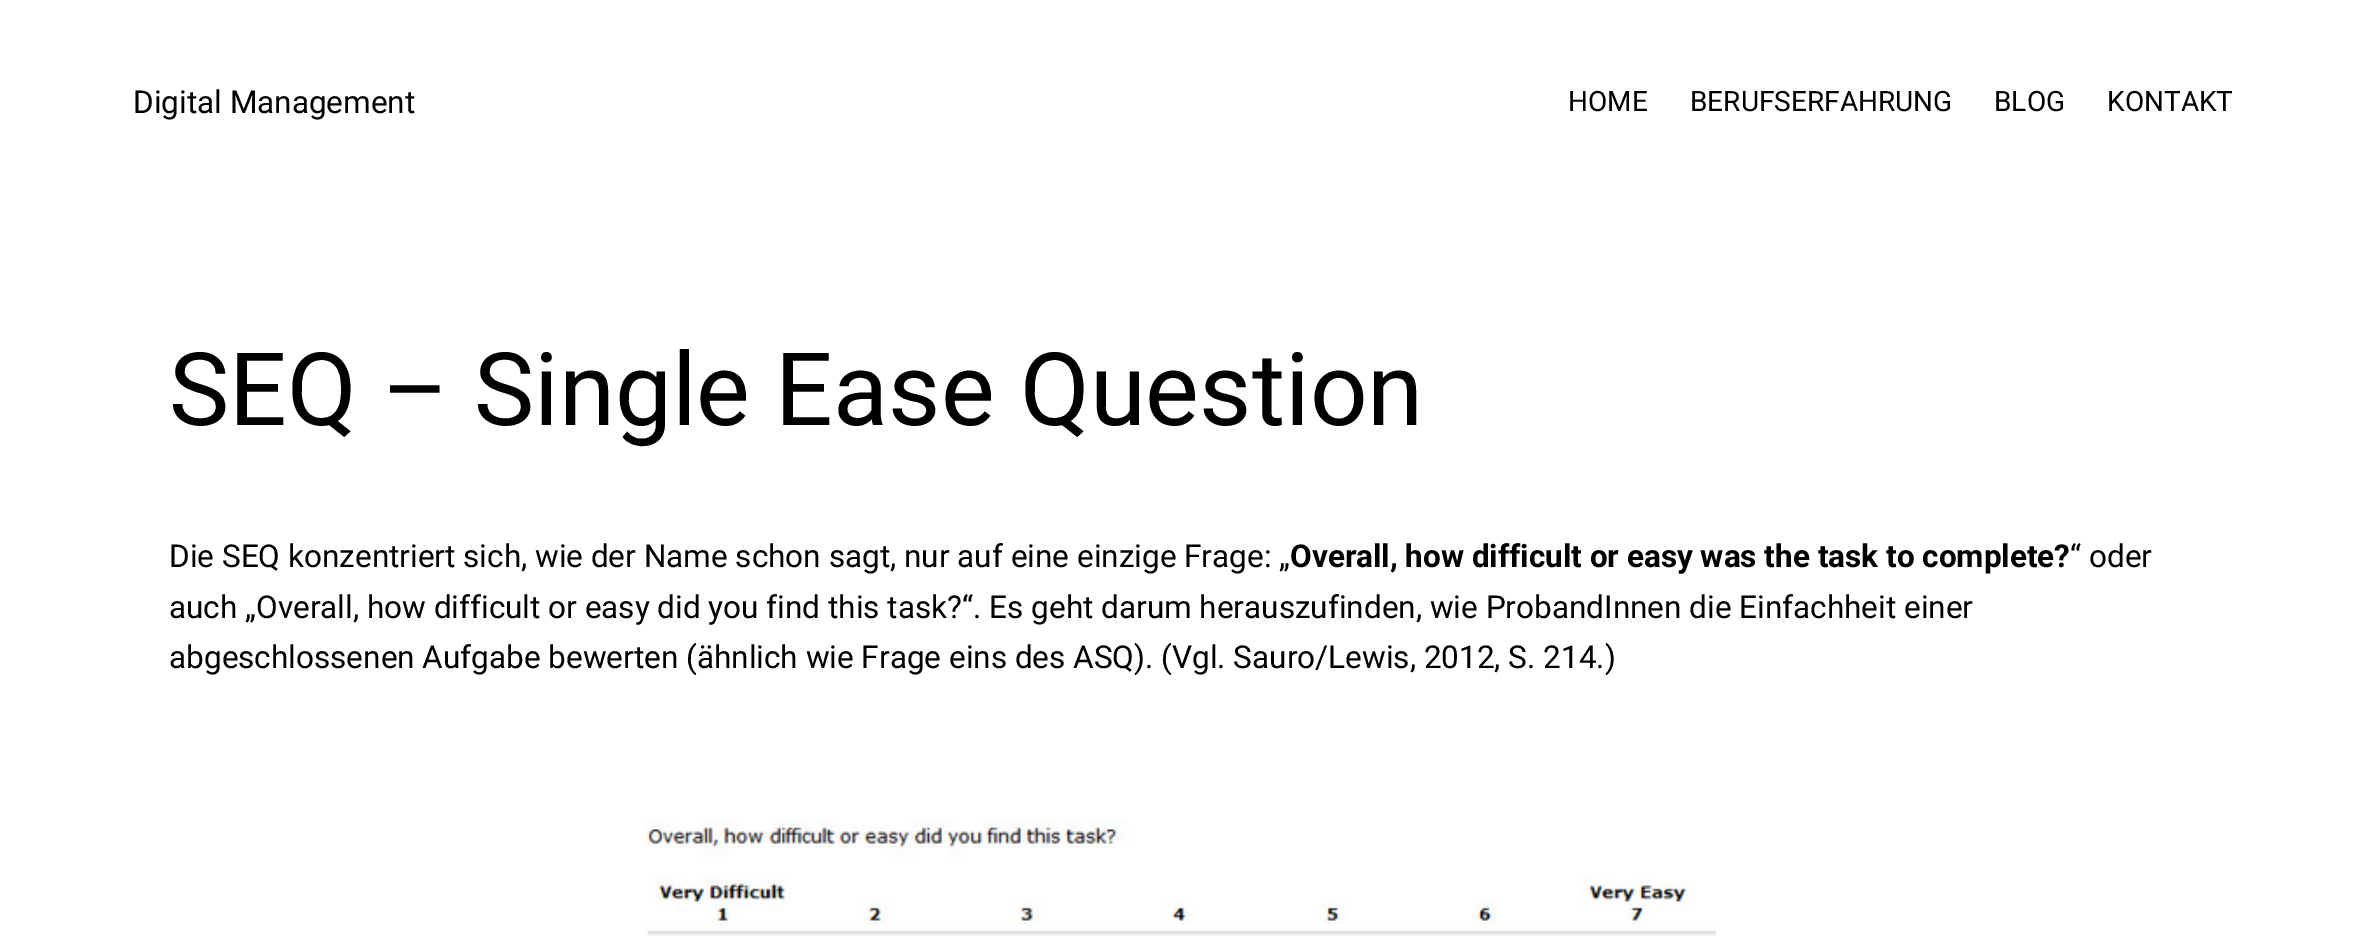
%!PS
<< /PageSize [2365 936] >> setpagedevice
/co { dup -16 bitshift 255 div exch dup -8 bitshift 255 and 255 div exch 255 and 255 div setrgbcolor } def
/fn { [ exch dup neg 0 0 3 -1 roll 0 0 ] selectfont } def
/tx { co fn moveto show } def
/bx { co rectfill } def
/im { 5 dict begin { /h /w /y /x /name } { exch def } forall
  gsave x y translate w h scale
  w h 8 [w 0 0 h 0 0] name (r) file false 3 colorimage grestore end } def
0 936 translate 1 -1 scale
4 setmiterlimit
0 0 2365 936 16#FFFFFF bx
(media/1.raw) 644 819 1073 117 im
(Digital Management) 133 113 /Roboto-Regular 31.5 16#000000 tx
(HOME) 1568 111 /Roboto-Regular 28 16#000000 tx
(BERUFSERFAHRUNG) 1690 111 /Roboto-Regular 28 16#000000 tx
(BLOG) 1994 111 /Roboto-Regular 28 16#000000 tx
(KONTAKT) 2107 111 /Roboto-Regular 28 16#000000 tx
(SEQ – Single Ease Question) 169 425 /Roboto-Regular 101.5 16#000000 tx
(Die SEQ konzentriert sich, wie der Name schon sagt, nur auf eine einzige Frage: „) 169 567 /Roboto-Regular 31.5 16#000000 tx
(Overall, how difficult or easy was the task to complete?) 1290 567 /Roboto-Bold 31.5 16#000000 tx
(“ oder) 2070 567 /Roboto-Regular 31.5 16#000000 tx
(auch „Overall, how difficult or easy did you find this task?“. Es geht darum herauszufinden, wie ProbandInnen die Einfachheit einer) 169 618 /Roboto-Regular 31.5 16#000000 tx
(abgeschlossenen Aufgabe bewerten \(ähnlich wie Frage eins des ASQ\). \(Vgl. Sauro/Lewis, 2012, S. 214.\)) 169 668 /Roboto-Regular 31.5 16#000000 tx
showpage
